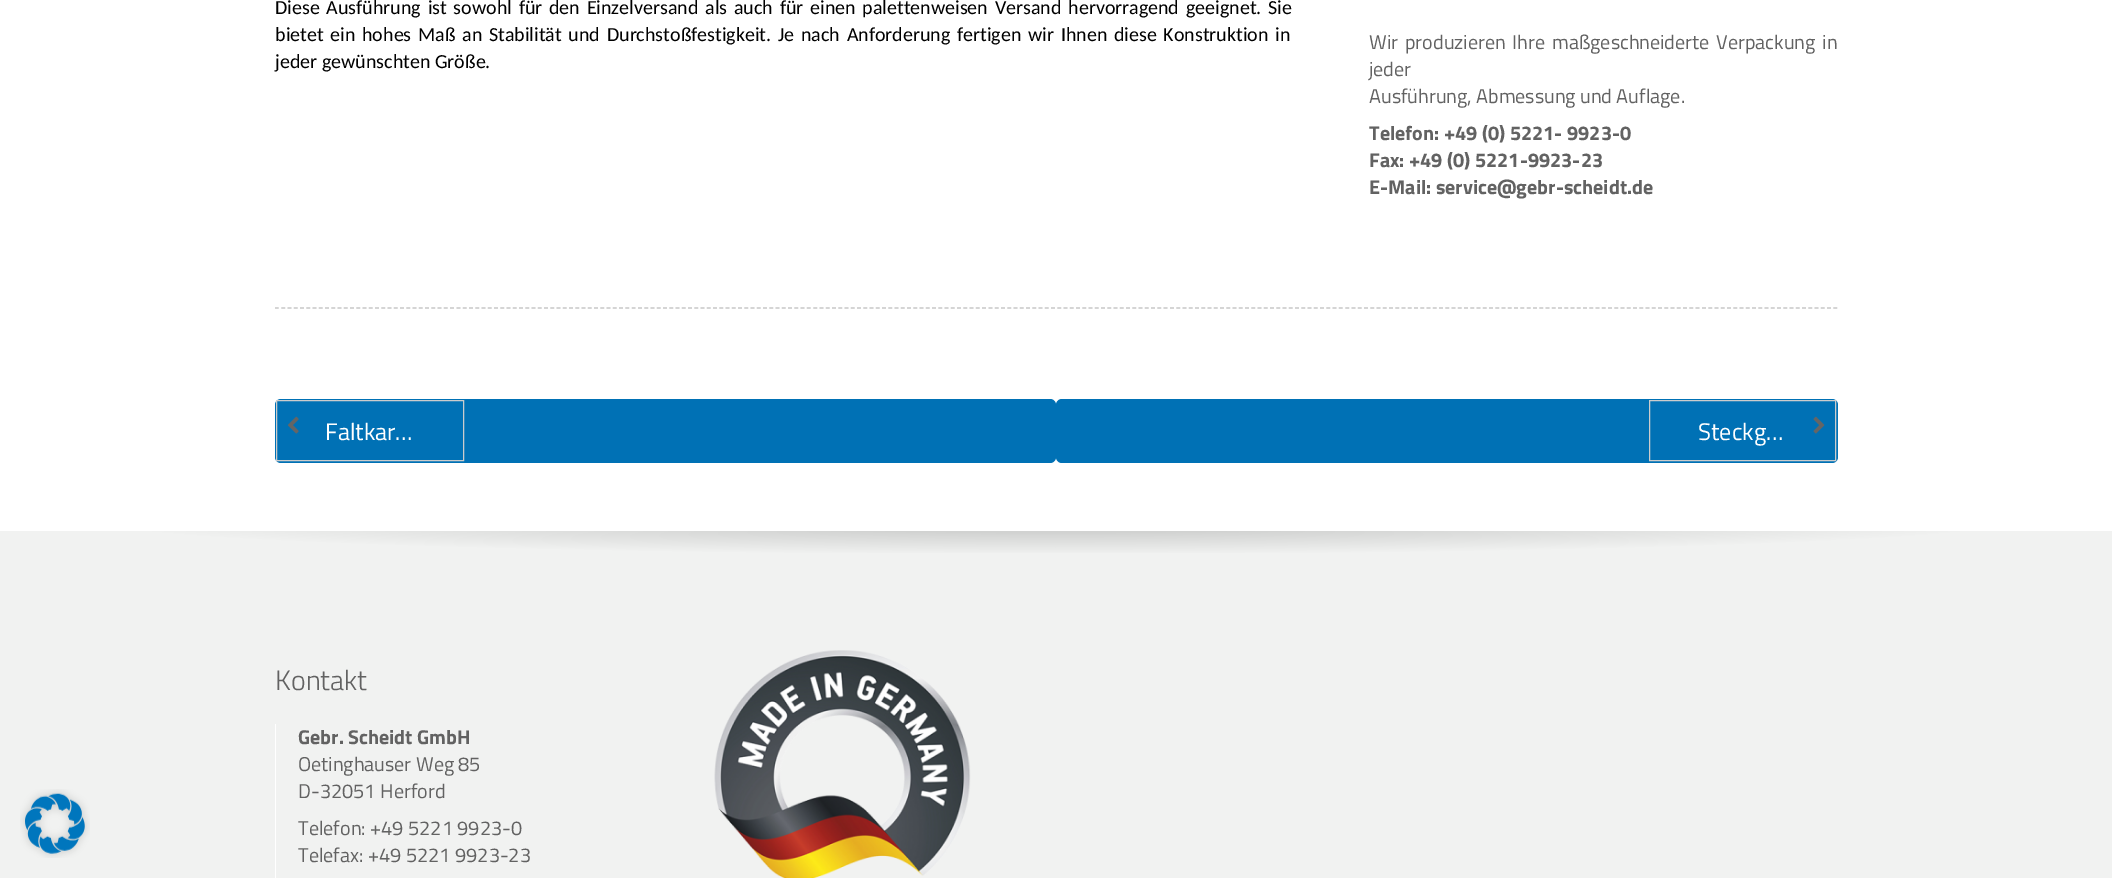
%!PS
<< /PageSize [2112 878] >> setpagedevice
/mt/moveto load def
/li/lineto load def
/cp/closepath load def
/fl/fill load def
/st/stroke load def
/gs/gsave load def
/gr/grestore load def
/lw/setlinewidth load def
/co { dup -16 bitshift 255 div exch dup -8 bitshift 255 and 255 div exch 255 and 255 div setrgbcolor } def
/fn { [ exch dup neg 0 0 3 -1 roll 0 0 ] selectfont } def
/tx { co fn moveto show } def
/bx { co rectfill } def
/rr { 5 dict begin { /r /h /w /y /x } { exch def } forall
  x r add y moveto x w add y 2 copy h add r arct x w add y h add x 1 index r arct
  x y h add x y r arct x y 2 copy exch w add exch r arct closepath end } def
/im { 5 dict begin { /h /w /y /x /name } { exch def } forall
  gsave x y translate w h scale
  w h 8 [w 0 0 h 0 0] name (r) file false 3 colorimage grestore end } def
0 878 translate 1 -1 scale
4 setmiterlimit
0 0 2112 878 16#FFFFFF bx
16#C6C6C6 co
1.2 lw
[3.75 2.51] 0 setdash
275 308 mt 1837.5 308 li st
16#0071B5 co
275 399 781 64 6 rr fl
16#CCCCCC co
1 lw
[] 0 setdash
276.5 400.5 187 60 rectstroke
(media/1.raw) 288 416 11 18 im
16#0071B5 co
1056 399 782 64 6 rr fl
16#CCCCCC co
1649.5 400.5 186 60 rectstroke
(media/2.raw) 1813 416 12 18 im
0 553 2112 325 16#F1F2F1 bx
(media/3.raw) 20 789 70 69 im
gs 0 531 mt 2112 531 li 2112 553 li 0 553 li cp clip newpath 1056 522 translate 1494 51 scale
<< /ShadingType 3 /ColorSpace /DeviceRGB /Coords [0 0 0 0 0 1] /Extend [true true] /Function << /FunctionType 3 /Domain [0 1] /Functions [<< /FunctionType 2 /Domain [0 1] /C0 [.82 .824 .82] /C1 [.82 .824 .82] /N 1 >> << /FunctionType 2 /Domain [0 1] /C0 [.82 .824 .82] /C1 [.945 .949 .945] /N 1 >> << /FunctionType 2 /Domain [0 1] /C0 [.945 .949 .945] /C1 [.945 .949 .945] /N 1 >>] /Bounds [.2 .64] /Encode [0 1 0 1 0 1] >> >> shfill gr
275 724 1 154 16#FFFFFF bx
(media/4.raw) 714 650 257 228 im
/Carlito-Regular 20 fn
16#000000 co
275 14 mt 2.25 0 32 (Diese Ausführung ist sowohl für den Einzelversand als auch für einen palettenweisen Versand hervorragend geeignet. Sie) widthshow
275 41 mt 2.25 0 32 (bietet ein hohes Maß an Stabilität und Durchstoßfestigkeit. Je nach Anforderung fertigen wir Ihnen diese Konstruktion in) widthshow
(jeder gewünschten Größe.) 275 68 /Carlito-Regular 20 16#000000 tx
/TitilliumWeb-Regular 20 fn
16#626262 co
1369 49 mt 2.5 0 32 (Wir produzieren Ihre maßgeschneiderte Verpackung in) widthshow
(jeder) 1369 76 /TitilliumWeb-Regular 20 16#626262 tx
(Ausführung, Abmessung und Auflage.) 1369 103 /TitilliumWeb-Regular 20 16#626262 tx
(Telefon: +49 \(0\) 5221- 9923-0) 1369 140 /TitilliumWeb-Bold 20 16#626262 tx
(Fax: +49 \(0\) 5221-9923-23) 1369 167 /TitilliumWeb-Bold 20 16#626262 tx
(E-Mail: service@gebr-scheidt.de) 1369 194 /TitilliumWeb-Bold 20 16#626262 tx
(Faltkar…) 325 440 /TitilliumWeb-Regular 24 16#FFFFFF tx
(Steckg…) 1698 440 /TitilliumWeb-Regular 24 16#FFFFFF tx
(Kontakt) 275 690 /TitilliumWeb-Light 28 16#626262 tx
(Gebr. Scheidt GmbH) 298 744 /TitilliumWeb-Bold 20 16#626262 tx
(Oetinghauser Weg 85) 298 771 /TitilliumWeb-Regular 20 16#626262 tx
(D-32051 Herford) 298 798 /TitilliumWeb-Regular 20 16#626262 tx
(Telefon: +49 5221 9923-0) 298 835 /TitilliumWeb-Regular 20 16#626262 tx
(Telefax: +49 5221 9923-23) 298 862 /TitilliumWeb-Regular 20 16#626262 tx
showpage
